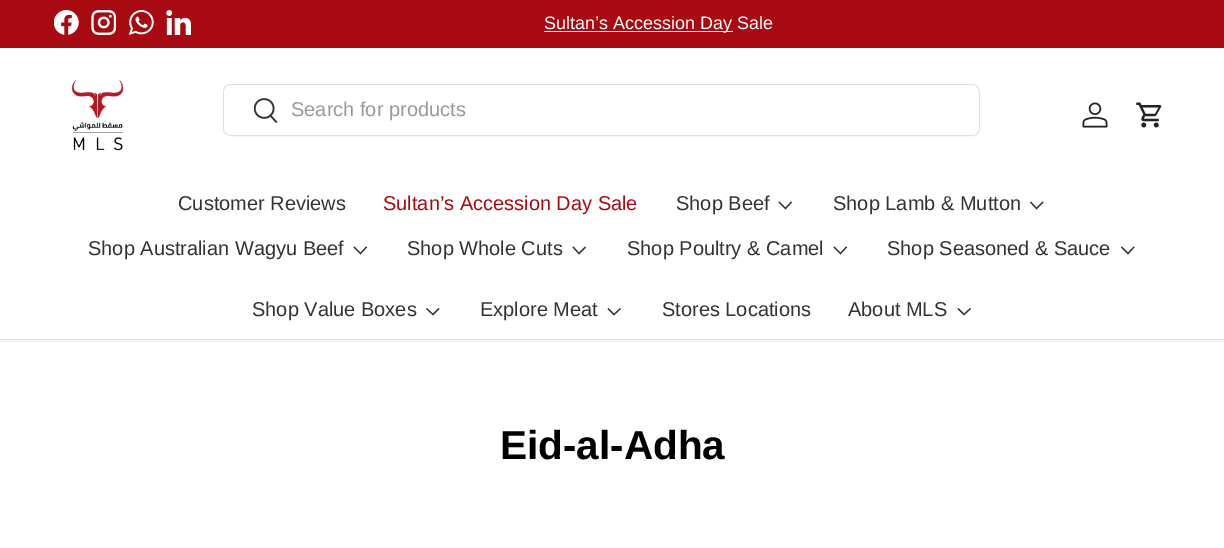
%!PS
<< /PageSize [1224 548] /PageUsesTransparency true >> setpagedevice
/mt/moveto load def
/li/lineto load def
/fl/fill load def
/st/stroke load def
/gs/gsave load def
/gr/grestore load def
/lw/setlinewidth load def
/co { dup -16 bitshift 255 div exch dup -8 bitshift 255 and 255 div exch 255 and 255 div setrgbcolor } def
/fn { [ exch dup neg 0 0 3 -1 roll 0 0 ] selectfont } def
/tx { co fn moveto show } def
/bx { co rectfill } def
/al { dup .setfillconstantalpha .setstrokeconstantalpha } def
/rr { 5 dict begin { /r /h /w /y /x } { exch def } forall
  x r add y moveto x w add y 2 copy h add r arct x w add y h add x 1 index r arct
  x y h add x y r arct x y 2 copy exch w add exch r arct closepath end } def
/sh { 12 dict begin { /a /b /q /h /w /y /x } { exch def } forall gsave /was 0 def
  9 -2 -9 { dup b mul 4 div /e exch def 1 sub .425 mul 2.718 exch exp 1 add a .99 .min exch div /now exch def
    1 1 now sub 1 was sub div sub al /was now def
    w h .min e 2 mul add 0 gt { x e sub y e sub w e 2 mul add h e 2 mul add
      q e add b .6 mul add w h .min 2 div e add .min 0 .max rr fill } if } for grestore end } def
/im { 5 dict begin { /h /w /y /x /name } { exch def } forall
  gsave x y translate w h scale
  w h 8 [w 0 0 h 0 0] name (r) file false 3 colorimage grestore end } def
0 .pushpdf14devicefilter
0 548 translate 1 -1 scale
4 setmiterlimit
0 0 1224 548 16#FFFFFF bx
gs
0 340 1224 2 rectclip
16#000000 co
-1 46 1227 295 0 2 .08 sh
gr
0 0 1224 48 16#A70A10 bx
(media/1.raw) 54 10 25 25 im
(media/2.raw) 91 10 25 25 im
(media/3.raw) 129 10 25 25 im
(media/4.raw) 166 10 25 25 im
544 31 189 1 16#FFFFFF bx
(media/5.raw) 72 80 52 71 im
16#E0E0E0 co
223.5 84.5 756 51 7.5 rr st
16#FFFFFF co
224 85 755 50 8 rr fl
(media/6.raw) 254 98 24 25 im
(media/7.raw) 1082 102 26 26 im
(media/8.raw) 1136 102 26 26 im
16#333333 co
1.2 lw
791.5 202 mt 785.5 208.5 li 779 202 li st
1043 202 mt 1036.5 208.5 li 1030.5 202 li st
366.5 247 mt 360.5 253.5 li 354 247 li st
585.5 247 mt 579 253.5 li 573 247 li st
846.5 247 mt 840.5 253.5 li 834 247 li st
1134 247 mt 1128 253.5 li 1121.5 247 li st
439 308.5 mt 433 314.5 li 426.5 308.5 li st
620.5 308.5 mt 614 314.5 li 608 308.5 li st
970.5 308.5 mt 964 314.5 li 958 308.5 li st
0 339 1224 1 16#E0E0E0 bx
(Sultan’s Accession Day Sale) 544 29 /LiberationSans-Regular 18 16#FFFFFF tx
(Search for products) 291 116 /LiberationSans-Regular 20 16#999999 tx
(Customer Reviews) 178 210 /LiberationSans-Regular 20 16#333333 tx
(Sultan’s Accession Day Sale) 383 210 /LiberationSans-Regular 20 16#A70A10 tx
(Shop Beef) 676 210 /LiberationSans-Regular 20 16#333333 tx
(Shop Lamb & Mutton) 833 210 /LiberationSans-Regular 20 16#333333 tx
(Shop Australian Wagyu Beef) 88 255 /LiberationSans-Regular 20 16#333333 tx
(Shop Whole Cuts) 407 255 /LiberationSans-Regular 20 16#333333 tx
(Shop Poultry & Camel) 627 255 /LiberationSans-Regular 20 16#333333 tx
(Shop Seasoned & Sauce) 887 255 /LiberationSans-Regular 20 16#333333 tx
(Shop Value Boxes) 252 316 /LiberationSans-Regular 20 16#333333 tx
(Explore Meat) 480 316 /LiberationSans-Regular 20 16#333333 tx
(Stores Locations) 662 316 /LiberationSans-Regular 20 16#333333 tx
(About MLS) 848 316 /LiberationSans-Regular 20 16#333333 tx
(Eid-al-Adha) 500 459 /LiberationSans-Bold 40.5 16#000000 tx
.poppdf14devicefilter showpage
